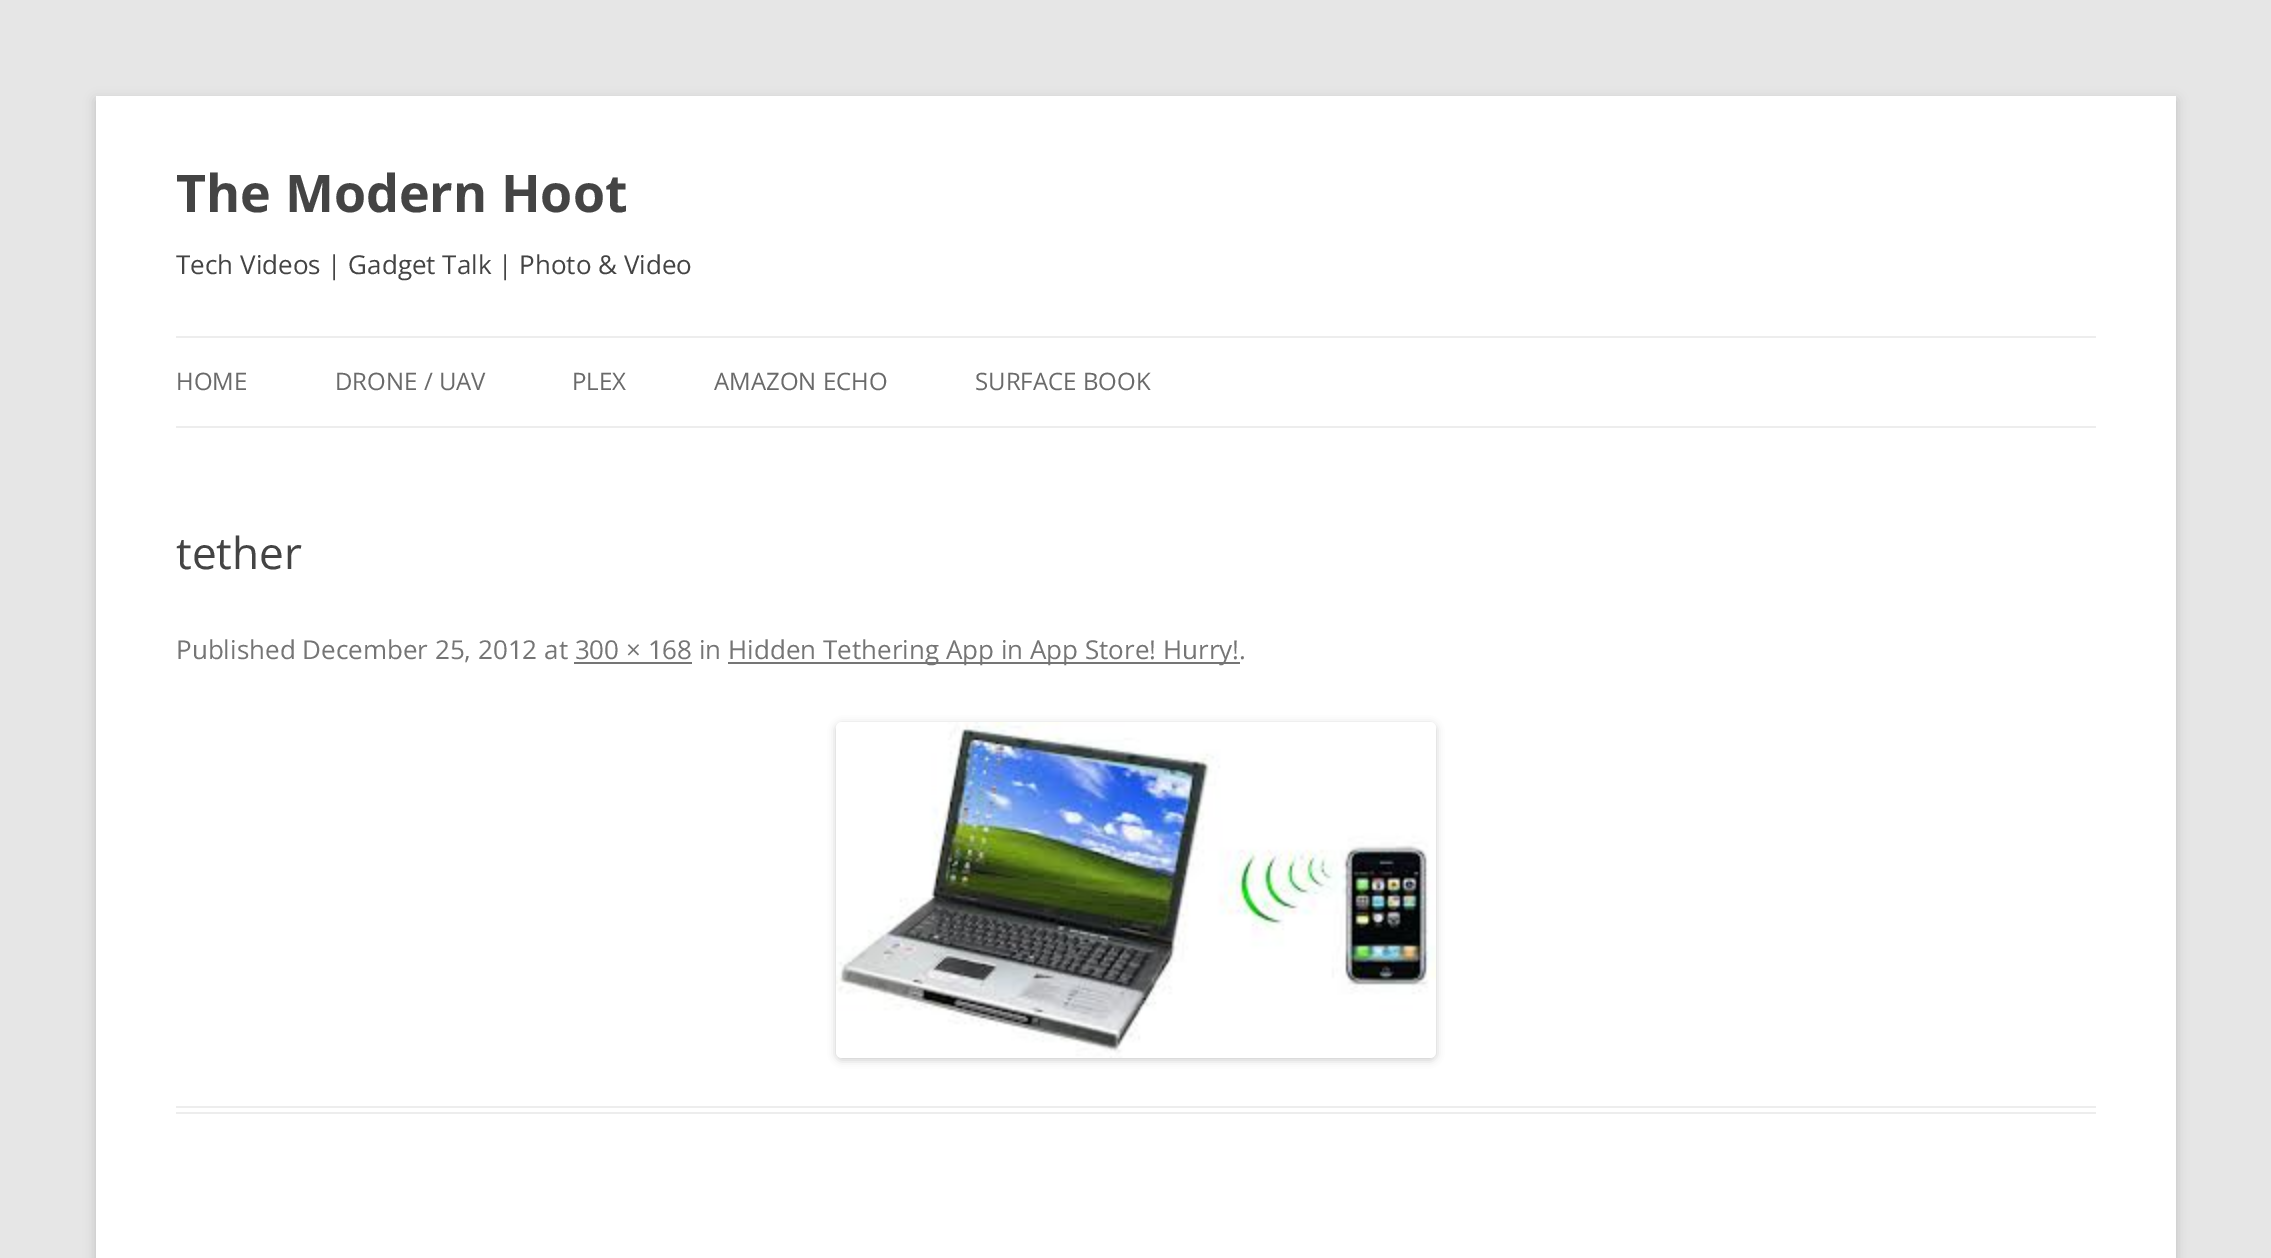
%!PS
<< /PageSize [2271 1258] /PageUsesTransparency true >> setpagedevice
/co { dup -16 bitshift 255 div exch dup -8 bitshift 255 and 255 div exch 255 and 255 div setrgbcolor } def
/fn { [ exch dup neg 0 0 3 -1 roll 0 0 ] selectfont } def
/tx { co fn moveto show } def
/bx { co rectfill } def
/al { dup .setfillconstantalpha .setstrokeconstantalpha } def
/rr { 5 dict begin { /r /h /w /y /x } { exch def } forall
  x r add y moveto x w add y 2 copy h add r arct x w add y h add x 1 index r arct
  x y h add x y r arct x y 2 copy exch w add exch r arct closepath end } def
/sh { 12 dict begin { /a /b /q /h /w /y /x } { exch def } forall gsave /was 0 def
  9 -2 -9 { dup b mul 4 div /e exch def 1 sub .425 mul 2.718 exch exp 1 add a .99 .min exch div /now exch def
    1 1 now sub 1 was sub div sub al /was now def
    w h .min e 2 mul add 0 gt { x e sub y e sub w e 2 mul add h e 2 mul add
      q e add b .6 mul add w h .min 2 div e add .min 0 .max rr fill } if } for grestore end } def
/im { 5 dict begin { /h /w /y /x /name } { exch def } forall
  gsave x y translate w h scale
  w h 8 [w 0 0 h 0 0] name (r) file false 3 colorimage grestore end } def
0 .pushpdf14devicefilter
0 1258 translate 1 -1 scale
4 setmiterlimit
0 0 2271 1258 16#E6E6E6 bx
16#646464 co
96 100 2080 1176 0 6 .3 sh
96 96 2080 1162 16#FFFFFF bx
176 336 1920 2 16#EDEDED bx
176 426 1920 2 16#EDEDED bx
176 1106 1920 2 16#EDEDED bx
176 1112 1920 2 16#EDEDED bx
728 662 512 2 16#757575 bx
574 662 118 2 16#757575 bx
16#000000 co
836 724 600 336 6 4 .2 sh
(media/1.raw) 836 722 600 336 im
(The Modern Hoot) 176 212 /OpenSans-Bold 52 16#444444 tx
(Tech Videos | Gadget Talk | Photo & Video) 176 274 /OpenSans-Regular 26 16#444444 tx
(HOME) 176 390 /OpenSans-Regular 24 16#6A6A6A tx
(DRONE / UAV) 335 390 /OpenSans-Regular 24 16#6A6A6A tx
(PLEX) 572 390 /OpenSans-Regular 24 16#6A6A6A tx
(AMAZON ECHO) 714 390 /OpenSans-Regular 24 16#6A6A6A tx
(SURFACE BOOK) 975 390 /OpenSans-Regular 24 16#6A6A6A tx
(tether) 176 569 /OpenSans-Regular 44 16#444444 tx
(Published December 25, 2012 at 300 × 168 in) 176 659 /OpenSans-Regular 26 16#757575 tx
(Hidden Tethering App in App Store! Hurry!.) 728 659 /OpenSans-Regular 26 16#757575 tx
.poppdf14devicefilter showpage
